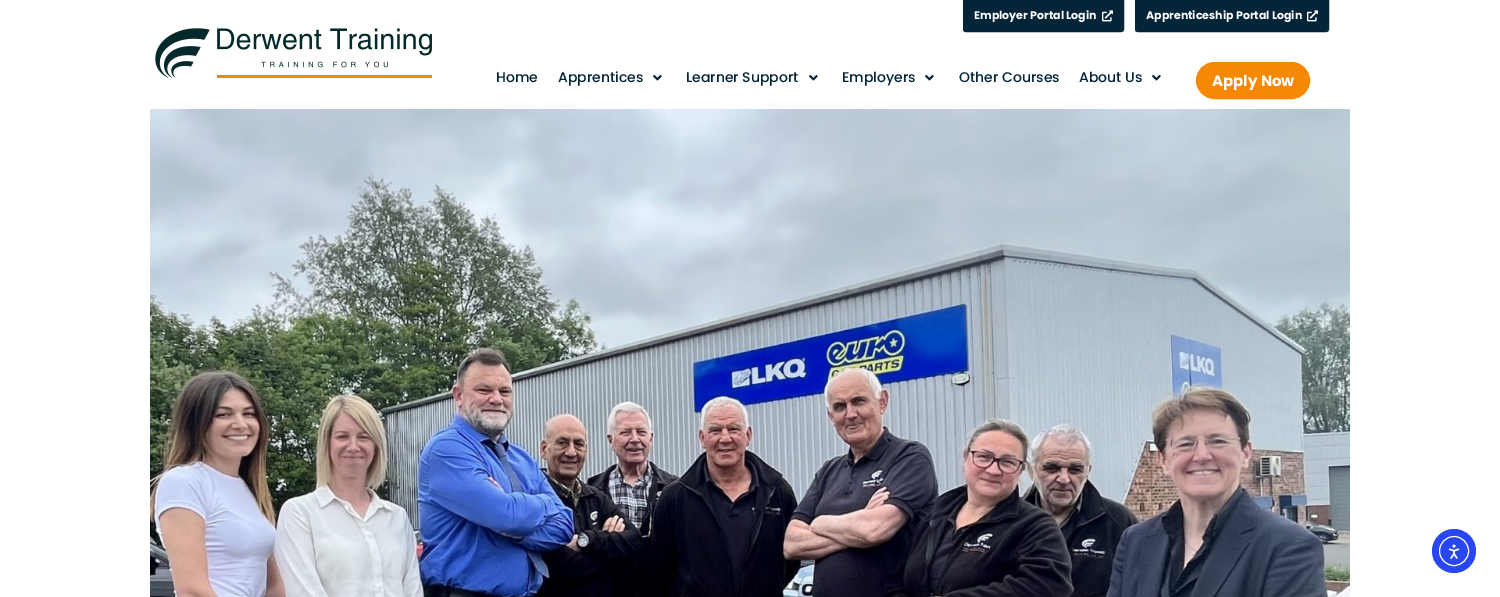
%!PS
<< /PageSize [1500 597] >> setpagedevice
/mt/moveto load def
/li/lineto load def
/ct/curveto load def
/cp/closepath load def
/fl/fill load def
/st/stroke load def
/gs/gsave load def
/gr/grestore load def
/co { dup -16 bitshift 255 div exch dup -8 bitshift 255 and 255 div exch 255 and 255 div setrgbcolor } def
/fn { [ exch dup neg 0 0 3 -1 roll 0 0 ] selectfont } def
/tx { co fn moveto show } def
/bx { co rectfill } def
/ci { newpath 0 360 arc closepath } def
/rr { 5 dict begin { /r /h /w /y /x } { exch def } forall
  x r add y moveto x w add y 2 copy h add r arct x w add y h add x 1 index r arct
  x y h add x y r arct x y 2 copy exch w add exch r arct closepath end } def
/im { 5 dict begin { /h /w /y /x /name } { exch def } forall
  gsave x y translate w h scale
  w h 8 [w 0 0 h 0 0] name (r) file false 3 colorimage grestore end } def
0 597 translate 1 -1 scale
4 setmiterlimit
0 0 1500 597 16#FFFFFF bx
(media/1.raw) 155 28 277 50 im
16#042438 co
963.5 -.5 mt 1123.5 -.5 li 1123.5 29 li 1123.5 30.5 1122.5 31.5 1121 31.5 ct 966 31.5 li 964.5 31.5 963.5 30.5 963.5 29 ct cp gs fl gr
st
(media/2.raw) 1102 10 11 12 im
1135.5 -.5 mt 1328.5 -.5 li 1328.5 29 li 1328.5 30.5 1327.5 31.5 1326 31.5 ct 1138 31.5 li 1136.5 31.5 1135.5 30.5 1135.5 29 ct cp gs fl gr
st
(media/2.raw) 1307 10 11 12 im
(media/3.raw) 653 75 9 6 im
(media/3.raw) 809 75 9 6 im
(media/3.raw) 925 75 9 6 im
(media/3.raw) 1152 75 9 6 im
16#F68803 co
1196.5 62.5 113 36 18 rr gs fl gr
st
(media/4.raw) 150 109 1200 488 im
16#2847F3 co
1454 551 22 ci fl
16#FFFFFF co
1454 551 14.5 ci st
(media/5.raw) 1448 544 12 15 im
(Employer Portal Login) 974 19 /Poppins-Bold 11 16#FFFFFF tx
(Apprenticeship Portal Login) 1146 19 /Poppins-Bold 11 16#FFFFFF tx
(Home) 496 82 /Poppins-Medium 14 16#042438 tx
(Apprentices) 558 82 /Poppins-Medium 14 16#042438 tx
(Learner Support) 686 82 /Poppins-Medium 14 16#042438 tx
(Employers) 842 82 /Poppins-Medium 14 16#042438 tx
(Other Courses) 959 82 /Poppins-Medium 14 16#042438 tx
(About Us) 1079 82 /Poppins-Medium 14 16#042438 tx
(Apply Now) 1212 86 /Poppins-Bold 15 16#FFFFFF tx
showpage
